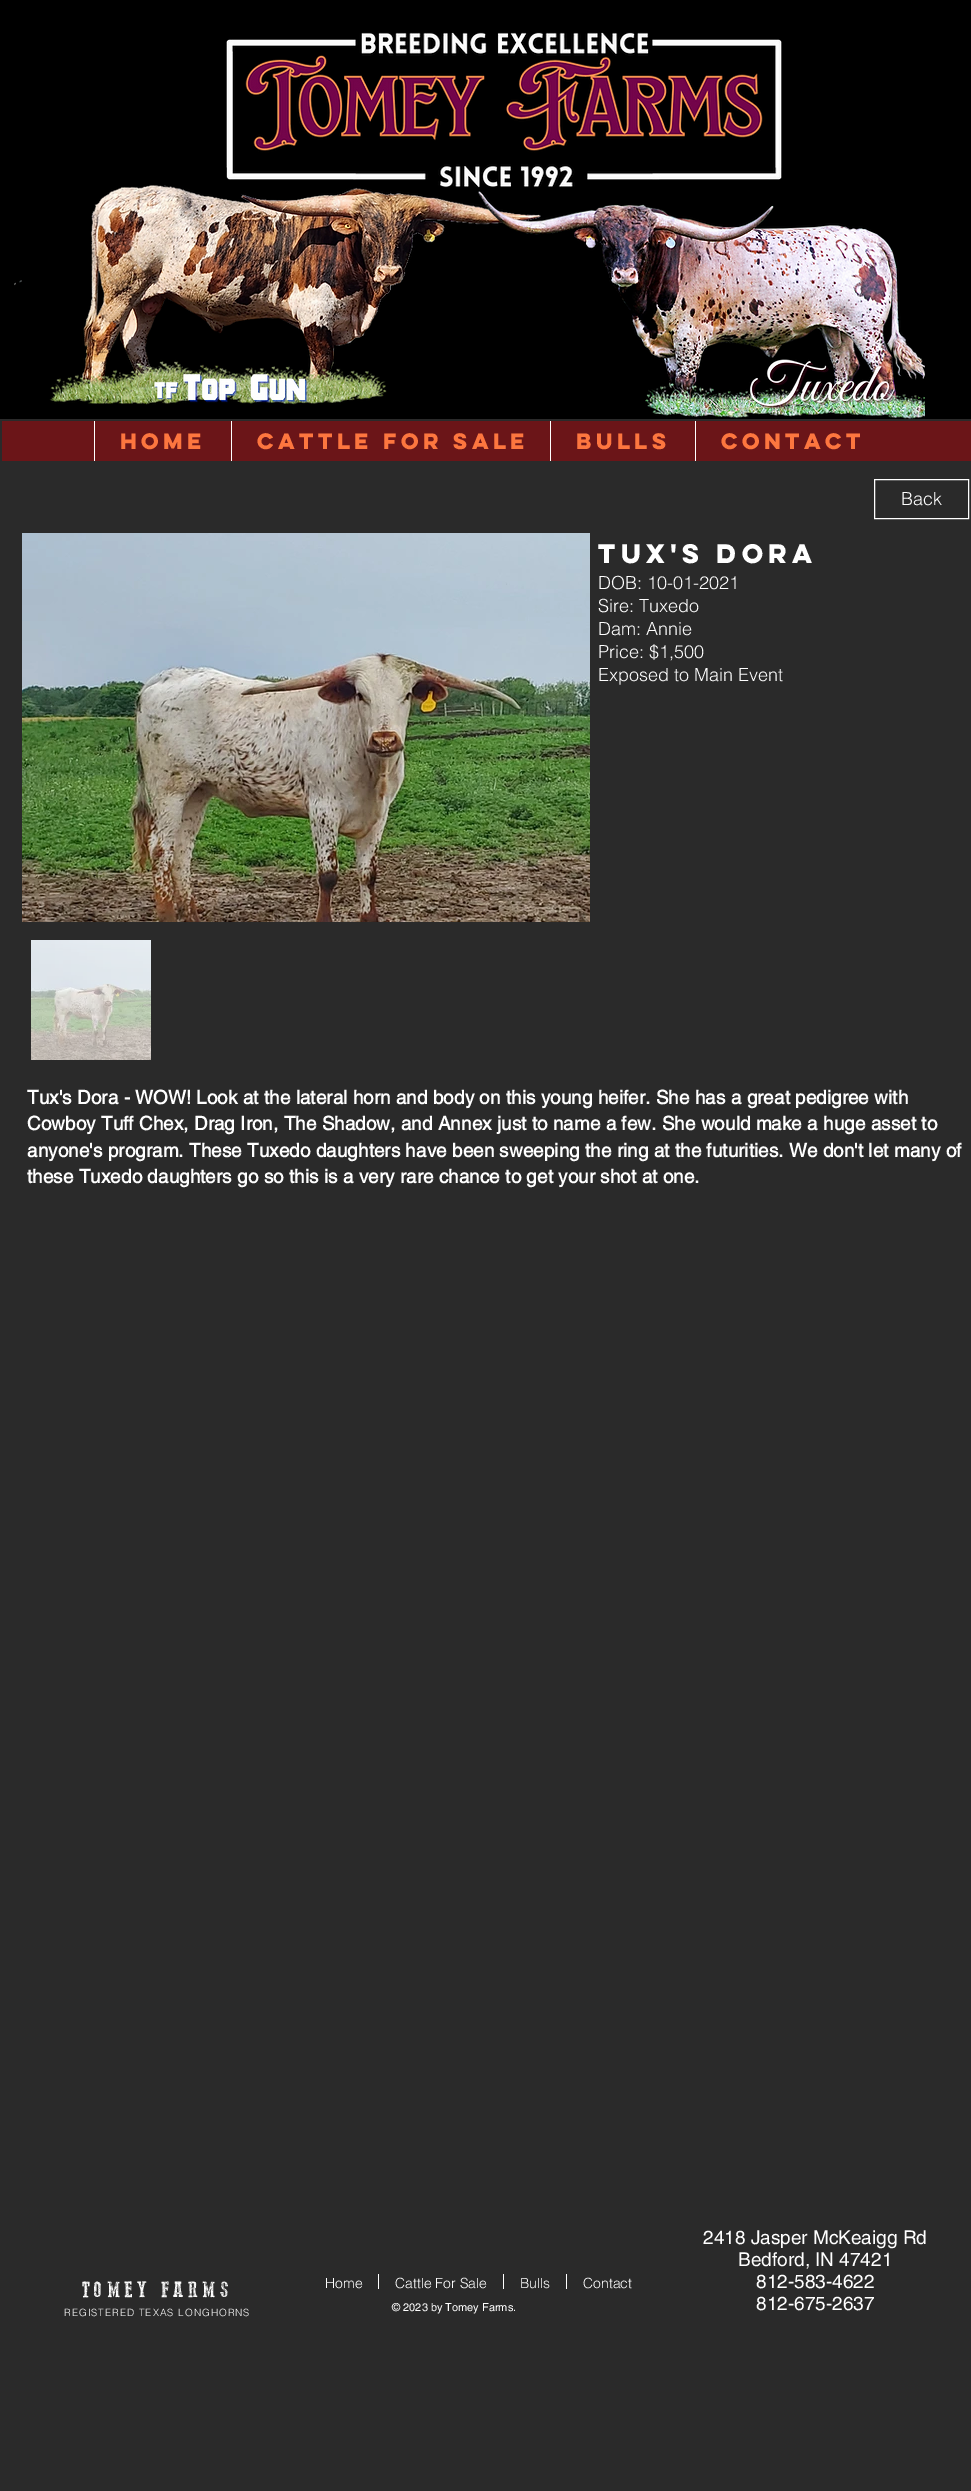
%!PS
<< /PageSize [971 2491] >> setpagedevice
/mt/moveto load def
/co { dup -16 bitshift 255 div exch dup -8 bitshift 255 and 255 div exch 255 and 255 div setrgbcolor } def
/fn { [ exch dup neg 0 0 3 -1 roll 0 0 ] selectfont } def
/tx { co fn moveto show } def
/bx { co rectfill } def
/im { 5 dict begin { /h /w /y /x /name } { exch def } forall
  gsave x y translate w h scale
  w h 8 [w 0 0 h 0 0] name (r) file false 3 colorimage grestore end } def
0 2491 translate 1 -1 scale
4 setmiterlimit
0 0 971 2491 16#2A2A2A bx
0 0 971 419 16#000000 bx
(media/2.raw) 14 185 527 220 im
(media/1.raw) 226 32 556 156 im
(media/3.raw) 478 191 447 228 im
(media/4.raw) 154 374 154 29 im
(media/5.raw) 749 359 148 50 im
2 421 969 40 16#6B1518 bx
94 421 1 40 16#FFFFFF bx
231 421 1 40 16#FFFFFF bx
550 421 1 40 16#FFFFFF bx
695 421 1 40 16#FFFFFF bx
874.5 479.5 94 39 rectstroke
(media/6.raw) 22 533 568 389 im
(media/7.raw) 31 940 120 120 im
378 2274 1 15 16#FFFFFF bx
503 2274 1 15 16#FFFFFF bx
566 2274 1 15 16#FFFFFF bx
(Home) 120 449 /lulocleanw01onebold-Bold 20 16#FD763F tx
(Cattle For Sale) 257 449 /lulocleanw01onebold-Bold 20 16#FD763F tx
(Bulls) 576 449 /lulocleanw01onebold-Bold 20 16#FD763F tx
(Contact) 721 449 /lulocleanw01onebold-Bold 20 16#FD763F tx
(Back) 901 505 /helvetica-Light 18 16#FFFFFF tx
(Tux's Dora) 598 563 /lulocleanw01onebold-Bold 24 16#FFFFFF tx
(DOB: 10-01-2021) 598 589 /helvetica-Light 18 16#FFFFFF tx
(Sire: Tuxedo) 598 612 /helvetica-Light 18 16#FFFFFF tx
(Dam: Annie) 598 635 /helvetica-Light 18 16#FFFFFF tx
(Price: $1,500) 598 658 /helvetica-Light 18 16#FFFFFF tx
(Exposed to Main Event) 598 681 /helvetica-Light 18 16#FFFFFF tx
(Tux's Dora - WOW! Look at the lateral horn and body on this young heifer. She has a great pedigree with) 27 1104 /helvetica-Bold 19 16#FFFFFF tx
(Cowboy Tuff Chex, Drag Iron, The Shadow, and Annex just to name a few. She would make a huge asset to) 27 1130 /helvetica-Bold 19 16#FFFFFF tx
(anyone's program. These Tuxedo daughters have been sweeping the ring at the futurities. We don't let many of) 27 1157 /helvetica-Bold 19 16#FFFFFF tx
(these Tuxedo daughters go so this is a very rare chance to get your shot at one.) 27 1183 /helvetica-Bold 19 16#FFFFFF tx
/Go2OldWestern-Regular 22 fn
82 2297 mt 4.4 0 (TOMEY FARMS) ashow
/helvetica-Light 10 fn
64 2316 mt 1 0 (REGISTERED TEXAS LONGHORNS) ashow
(Home) 325 2288 /helvetica-Light 14 16#FFFFFF tx
(Cattle For Sale) 395 2288 /helvetica-Light 14 16#FFFFFF tx
(Bulls) 520 2288 /helvetica-Light 14 16#FFFFFF tx
(Contact) 583 2288 /helvetica-Light 14 16#FFFFFF tx
(2418 Jasper McKeaigg Rd) 703 2244 /helvetica-Regular 19 16#FFFFFF tx
(Bedford, IN 47421) 738 2266 /helvetica-Regular 19 16#FFFFFF tx
(812-583-4622) 756 2288 /helvetica-Regular 19 16#FFFFFF tx
(812-675-2637) 756 2310 /helvetica-Regular 19 16#FFFFFF tx
(© 2023 by Tomey Farms.) 392 2311 /helvetica-Regular 11 16#FFFFFF tx
showpage
